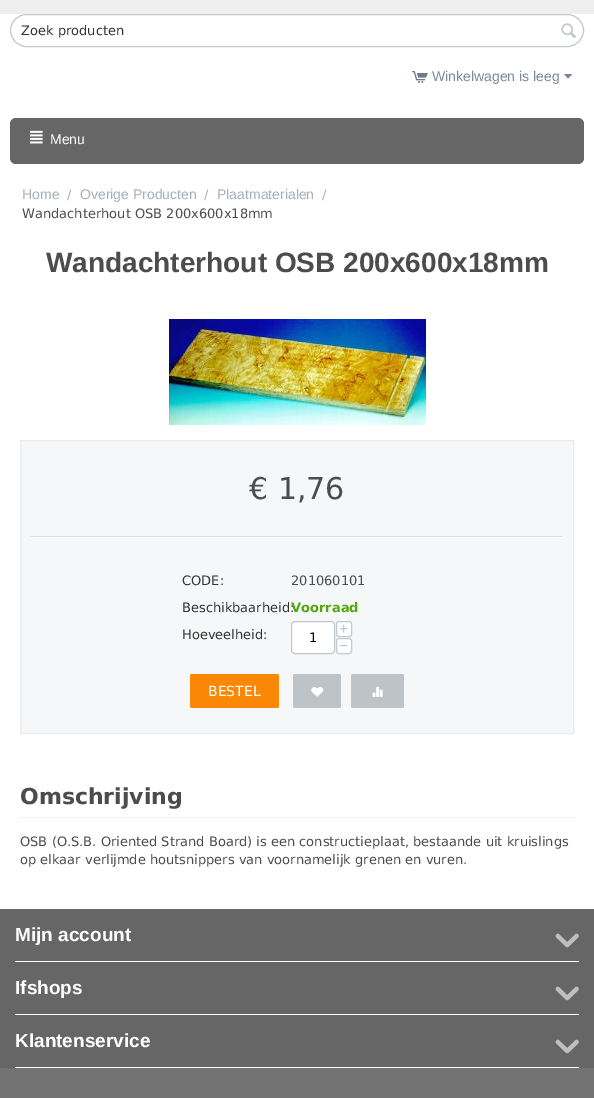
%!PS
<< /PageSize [594 1098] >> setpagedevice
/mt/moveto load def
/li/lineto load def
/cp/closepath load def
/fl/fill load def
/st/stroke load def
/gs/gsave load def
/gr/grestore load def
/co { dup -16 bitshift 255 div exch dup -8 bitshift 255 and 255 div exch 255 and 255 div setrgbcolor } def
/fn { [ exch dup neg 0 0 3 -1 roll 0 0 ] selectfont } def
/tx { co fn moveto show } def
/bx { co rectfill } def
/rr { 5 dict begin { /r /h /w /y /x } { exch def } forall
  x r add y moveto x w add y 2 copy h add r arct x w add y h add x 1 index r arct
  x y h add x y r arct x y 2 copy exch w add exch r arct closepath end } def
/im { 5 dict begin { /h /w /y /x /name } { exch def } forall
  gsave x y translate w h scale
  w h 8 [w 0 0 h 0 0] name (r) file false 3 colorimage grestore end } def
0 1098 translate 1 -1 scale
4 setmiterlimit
0 0 594 1098 16#FFFFFF bx
0 0 594 14 16#EFEFEF bx
16#C2C9D0 co
10.5 14.5 573 32 16 rr st
(media/1.raw) 561 23 16 16 im
(media/2.raw) 412 71 16 12 im
16#7A8998 co
568 78.5 mt 564 74 li 572.5 74 li cp fl
16#666666 co
10 118 574 46 6 rr fl
(media/3.raw) 30 130 13 14 im
(media/4.raw) 169 319 257 106 im
16#F6F7F8 co
20.5 440.5 mt 573.5 440.5 li 573.5 733.5 li 20.5 733.5 li cp gs fl gr
16#EBEBEB co
st
31 537 532 1 16#FFFFFF bx
31 536 532 1 16#DDDFDF bx
16#FFFFFF co
336.5 621.5 15 15 2.5 rr gs fl gr
16#C2C9D0 co
st
16#FFFFFF co
291.5 621.5 43 32 3.5 rr gs fl gr
16#C2C9D0 co
st
16#FFFFFF co
336.5 638.5 15 15 2.5 rr gs fl gr
16#C2C9D0 co
st
16#FA8806 co
190 674 89 34 2 rr fl
16#BDC3C7 co
293 674 48 34 2 rr fl
(media/5.raw) 311 687 13 10 im
351 674 53 34 2 rr fl
(media/6.raw) 372 686 11 11 im
20 817 554 1 16#EDEFF1 bx
0 909 594 159 16#666666 bx
15 961 564 1 16#FFFFFF bx
(media/7.raw) 555 933 24 15 im
15 1014 564 1 16#FFFFFF bx
(media/7.raw) 555 986 24 15 im
15 1067 564 1 16#FFFFFF bx
(media/7.raw) 555 1039 24 15 im
0 1068 594 30 16#737373 bx
(Zoek producten) 21 35 /DejaVuSans-Regular 13 16#333333 tx
(Winkelwagen is leeg) 432 81 /LiberationSans-Regular 14 16#7A8998 tx
(Menu) 50 144 /LiberationSans-Regular 14 16#FFFFFF tx
(Home) 22 199 /LiberationSans-Regular 14 16#A5AFB9 tx
(/) 67 199 /DejaVuSans-Regular 13 16#A5AFB9 tx
(Overige Producten) 80 199 /LiberationSans-Regular 14 16#A5AFB9 tx
(/) 204 199 /DejaVuSans-Regular 13 16#A5AFB9 tx
(Plaatmaterialen) 217 199 /LiberationSans-Regular 14 16#A5AFB9 tx
(/) 322 199 /DejaVuSans-Regular 13 16#A5AFB9 tx
(Wandachterhout OSB 200x600x18mm) 22 218 /DejaVuSans-Regular 13 16#4C4C4C tx
(Wandachterhout OSB 200x600x18mm) 46 272 /LiberationSans-Bold 28 16#4C4C4C tx
(€ 1,76) 249 499 /DejaVuSans-Regular 30 16#4C4C4C tx
(CODE:) 182 585 /DejaVuSans-Regular 13 16#333333 tx
(201060101) 291 585 /DejaVuSans-Regular 13 16#4C4C4C tx
(Beschikbaarheid:) 182 612 /DejaVuSans-Regular 13 16#333333 tx
(Voorraad) 291 612 /DejaVuSans-Bold 13 16#53A80F tx
(Hoeveelheid:) 182 639 /DejaVuSans-Regular 13 16#333333 tx
(+) 339 634 /LiberationSans-Regular 16 16#C2C9D0 tx
(1) 309 642 /DejaVuSans-Regular 13 16#000000 tx
(−) 339 651 /LiberationSans-Regular 16 16#C2C9D0 tx
(BESTEL) 208 696 /DejaVuSans-Regular 14 16#FFFFFF tx
(Omschrijving) 20 804 /DejaVuSans-Bold 22 16#4C4C4C tx
(OSB \(O.S.B. Oriented Strand Board\) is een constructieplaat, bestaande uit kruislings) 20 846 /DejaVuSans-Regular 13 16#4C4C4C tx
(op elkaar verlijmde houtsnippers van voornamelijk grenen en vuren.) 20 864 /DejaVuSans-Regular 13 16#4C4C4C tx
(Mijn account) 15 941 /LiberationSans-Bold 19 16#FFFFFF tx
(Ifshops) 15 994 /LiberationSans-Bold 19 16#FFFFFF tx
(Klantenservice) 15 1047 /LiberationSans-Bold 19 16#FFFFFF tx
showpage
